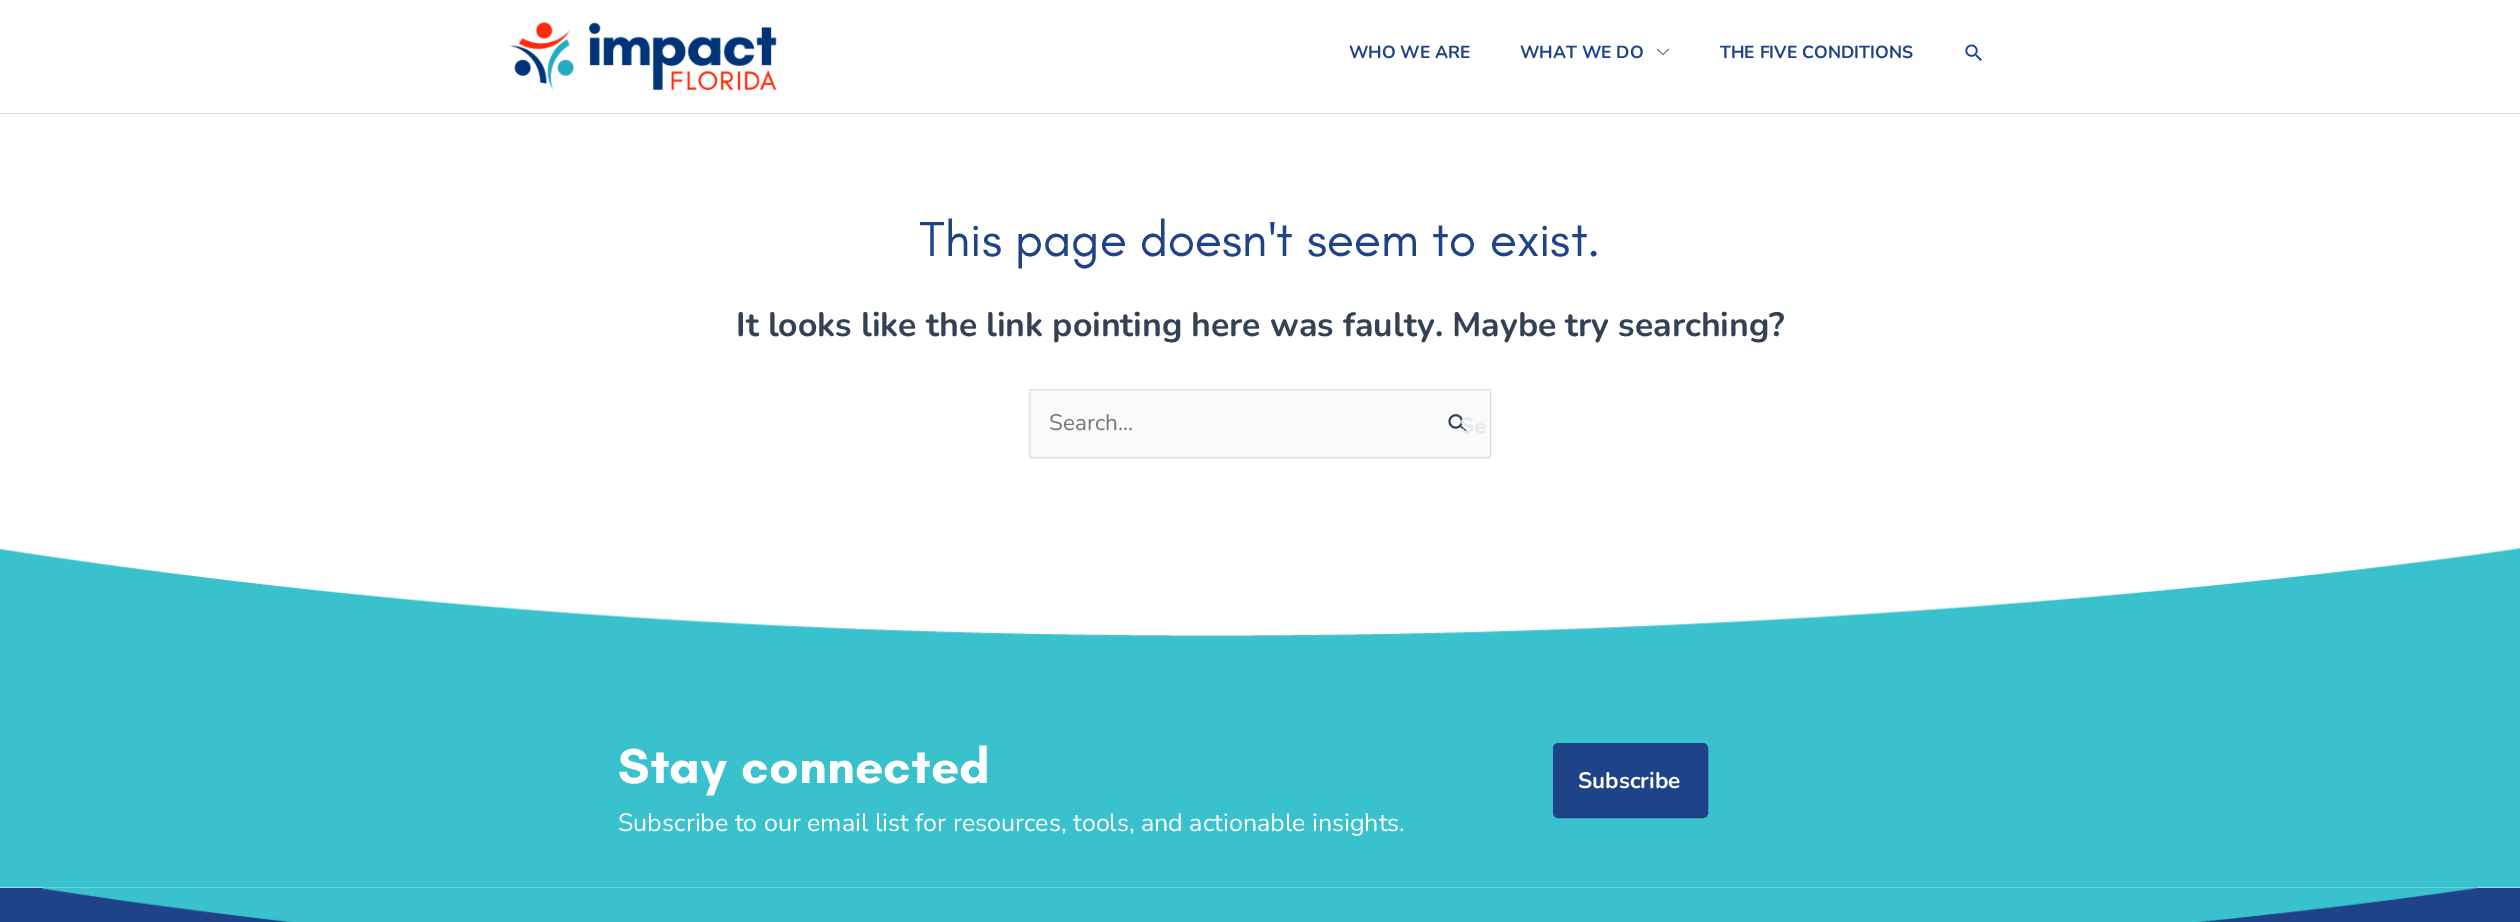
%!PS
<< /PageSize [2520 922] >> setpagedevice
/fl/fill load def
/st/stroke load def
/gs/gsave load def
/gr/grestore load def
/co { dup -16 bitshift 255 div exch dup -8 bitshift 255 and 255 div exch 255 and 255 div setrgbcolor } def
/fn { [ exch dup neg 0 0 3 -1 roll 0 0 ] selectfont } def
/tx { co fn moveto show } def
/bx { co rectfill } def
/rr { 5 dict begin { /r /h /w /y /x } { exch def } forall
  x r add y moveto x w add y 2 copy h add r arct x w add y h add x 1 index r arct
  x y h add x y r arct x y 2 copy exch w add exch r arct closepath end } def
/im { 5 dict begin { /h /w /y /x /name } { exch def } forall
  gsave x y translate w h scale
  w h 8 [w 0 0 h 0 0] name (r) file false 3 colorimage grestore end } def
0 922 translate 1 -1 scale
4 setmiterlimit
0 0 2520 922 16#FFFFFF bx
0 113 2520 1 16#DDDDDD bx
(media/1.raw) 510 22 267 68 im
(media/2.raw) 1657 48 12 8 im
(media/3.raw) 1965 44 17 17 im
16#FAFAFA co
1029.5 389.5 461 68 2 rr gs fl gr
16#DDDDDD co
st
(media/4.raw) 1448 414 20 20 im
(media/5.raw) 0 547 2520 341 im
16#1F4388 co
1553.5 743.5 154 74 4.5 rr gs fl gr
st
0 888 2520 34 16#1F4388 bx
(media/6.raw) 42 887 2436 35 im
(WHO WE ARE) 1349 58 /Nunito-Bold 17.5 16#1F4388 tx
(WHAT WE DO) 1520 58 /Nunito-Bold 17.5 16#1F4388 tx
(THE FIVE CONDITIONS) 1720 58 /Nunito-Bold 17.5 16#1F4388 tx
(This page doesn't seem to exist.) 919 256 /Teachers-Regular 50 16#1F4388 tx
(It looks like the link pointing here was faulty. Maybe try searching?) 736 336 /Nunito-Bold 33.75 16#334155 tx
(Search...) 1049 430 /Nunito-Regular 22.5 16#757575 tx
(Se) 1460 433 /Teachers-SemiBold 22.5 16#E6E8EA tx
(Stay connected) 618 783 /Teachers-Bold 50 16#FFFFFF tx
(Subscribe to our email list for resources, tools, and actionable insights.) 618 831 /Nunito-Regular 25 16#FFFFFF tx
(Subscribe) 1578 788 /Nunito-Bold 22.5 16#FFFFFF tx
showpage
